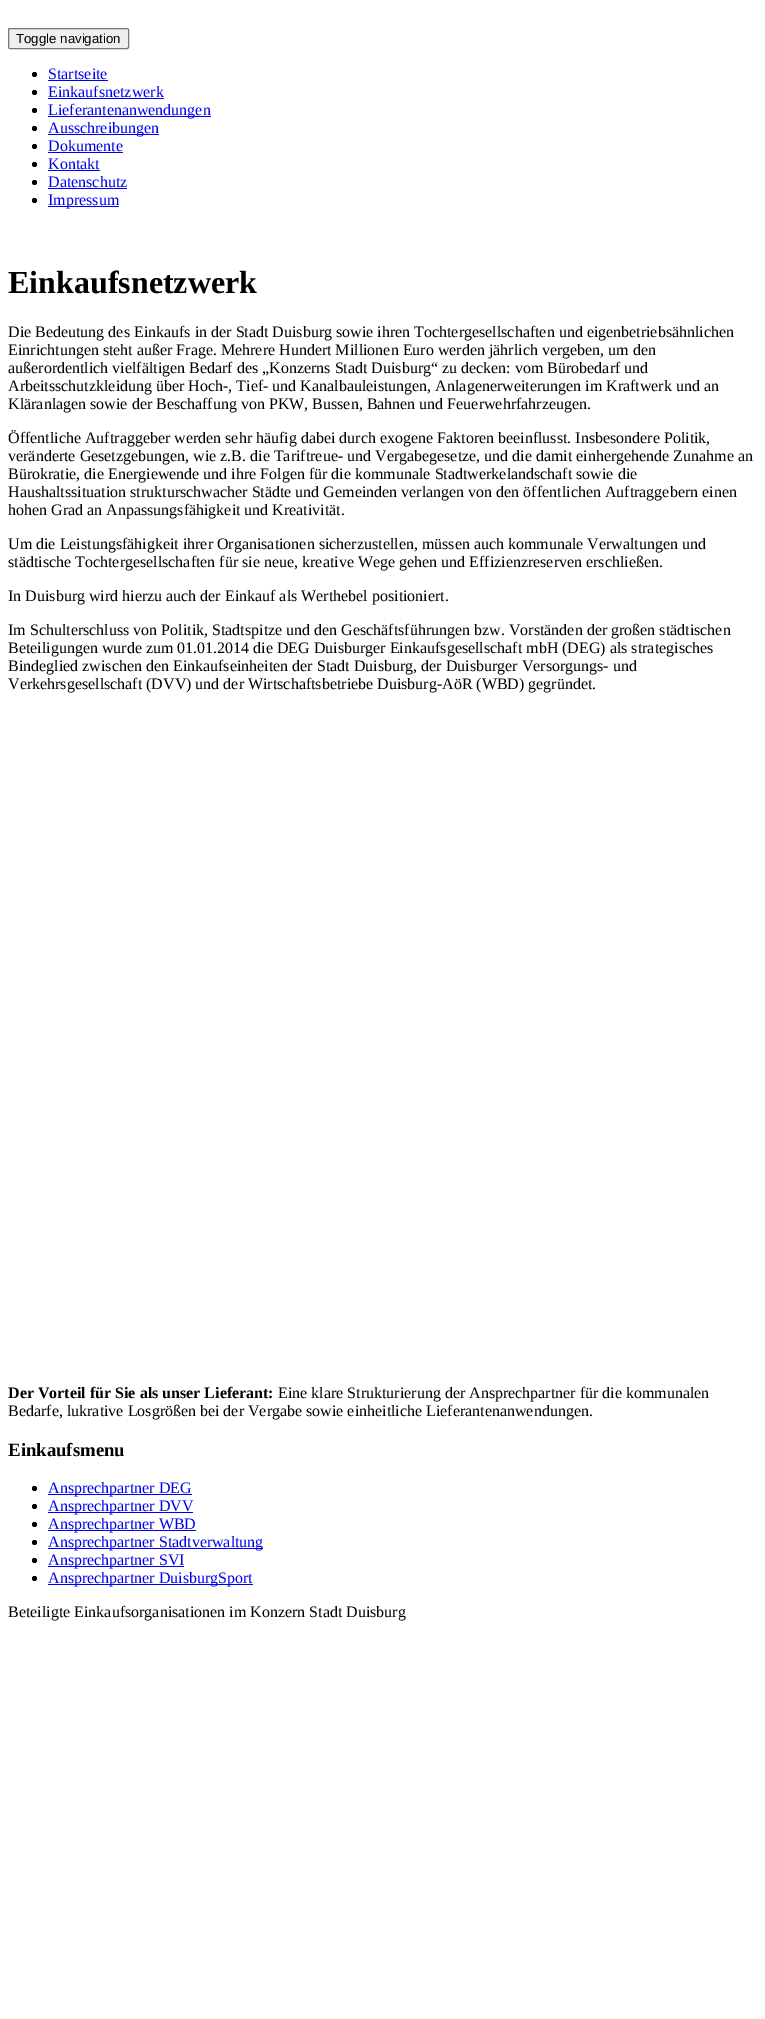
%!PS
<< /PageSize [765 2019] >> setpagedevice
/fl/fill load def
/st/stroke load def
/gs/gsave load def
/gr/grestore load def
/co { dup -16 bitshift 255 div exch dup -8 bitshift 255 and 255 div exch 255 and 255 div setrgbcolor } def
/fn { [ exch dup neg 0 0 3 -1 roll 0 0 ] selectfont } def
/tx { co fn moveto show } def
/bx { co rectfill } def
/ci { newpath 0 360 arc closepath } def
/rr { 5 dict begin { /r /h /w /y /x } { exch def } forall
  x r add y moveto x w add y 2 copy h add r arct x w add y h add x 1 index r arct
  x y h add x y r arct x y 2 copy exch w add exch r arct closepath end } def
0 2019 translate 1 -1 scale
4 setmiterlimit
0 0 765 2019 16#FFFFFF bx
16#EFEFEF co
8.5 28.5 120 20 1.5 rr gs fl gr
16#767676 co
st
16#000000 co
34.5 74.5 2.5 ci fl
48 80 60 1 16#0000EE bx
16#000000 co
34.5 92.5 2.5 ci fl
48 98 116 1 16#0000EE bx
16#000000 co
34.5 110.5 2.5 ci fl
48 116 163 1 16#0000EE bx
16#000000 co
34.5 128.5 2.5 ci fl
48 134 111 1 16#0000EE bx
16#000000 co
34.5 146.5 2.5 ci fl
48 152 75 1 16#0000EE bx
16#000000 co
34.5 164.5 2.5 ci fl
48 170 52 1 16#0000EE bx
16#000000 co
34.5 182.5 2.5 ci fl
48 188 79 1 16#0000EE bx
16#000000 co
34.5 200.5 2.5 ci fl
48 206 71 1 16#0000EE bx
16#000000 co
34.5 1488.5 2.5 ci fl
48 1494 144 1 16#0000EE bx
16#000000 co
34.5 1506.5 2.5 ci fl
48 1512 145 1 16#0000EE bx
16#000000 co
34.5 1524.5 2.5 ci fl
48 1530 148 1 16#0000EE bx
16#000000 co
34.5 1542.5 2.5 ci fl
48 1548 215 1 16#0000EE bx
16#000000 co
34.5 1560.5 2.5 ci fl
48 1566 136 1 16#0000EE bx
16#000000 co
34.5 1578.5 2.5 ci fl
48 1584 205 1 16#0000EE bx
(Toggle navigation) 16 43 /LiberationSans-Regular 13.25 16#000000 tx
(Startseite) 48 79 /LiberationSerif-Regular 16 16#0000EE tx
(Einkaufsnetzwerk) 48 97 /LiberationSerif-Regular 16 16#0000EE tx
(Lieferantenanwendungen) 48 115 /LiberationSerif-Regular 16 16#0000EE tx
(Ausschreibungen) 48 133 /LiberationSerif-Regular 16 16#0000EE tx
(Dokumente) 48 151 /LiberationSerif-Regular 16 16#0000EE tx
(Kontakt) 48 169 /LiberationSerif-Regular 16 16#0000EE tx
(Datenschutz) 48 187 /LiberationSerif-Regular 16 16#0000EE tx
(Impressum) 48 205 /LiberationSerif-Regular 16 16#0000EE tx
(Einkaufsnetzwerk) 8 293 /LiberationSerif-Bold 32 16#000000 tx
(Die Bedeutung des Einkaufs in der Stadt Duisburg sowie ihren Tochtergesellschaften und eigenbetriebsähnlichen) 8 337 /LiberationSerif-Regular 16 16#000000 tx
(Einrichtungen steht außer Frage. Mehrere Hundert Millionen Euro werden jährlich vergeben, um den) 8 355 /LiberationSerif-Regular 16 16#000000 tx
(außerordentlich vielfältigen Bedarf des „Konzerns Stadt Duisburg“ zu decken: vom Bürobedarf und) 8 373 /LiberationSerif-Regular 16 16#000000 tx
(Arbeitsschutzkleidung über Hoch-, Tief- und Kanalbauleistungen, Anlagenerweiterungen im Kraftwerk und an) 8 391 /LiberationSerif-Regular 16 16#000000 tx
(Kläranlagen sowie der Beschaffung von PKW, Bussen, Bahnen und Feuerwehrfahrzeugen.) 8 409 /LiberationSerif-Regular 16 16#000000 tx
(Öffentliche Auftraggeber werden sehr häufig dabei durch exogene Faktoren beeinflusst. Insbesondere Politik,) 8 443 /LiberationSerif-Regular 16 16#000000 tx
(veränderte Gesetzgebungen, wie z.B. die Tariftreue- und Vergabegesetze, und die damit einhergehende Zunahme an) 8 461 /LiberationSerif-Regular 16 16#000000 tx
(Bürokratie, die Energiewende und ihre Folgen für die kommunale Stadtwerkelandschaft sowie die) 8 479 /LiberationSerif-Regular 16 16#000000 tx
(Haushaltssituation strukturschwacher Städte und Gemeinden verlangen von den öffentlichen Auftraggebern einen) 8 497 /LiberationSerif-Regular 16 16#000000 tx
(hohen Grad an Anpassungsfähigkeit und Kreativität.) 8 515 /LiberationSerif-Regular 16 16#000000 tx
(Um die Leistungsfähigkeit ihrer Organisationen sicherzustellen, müssen auch kommunale Verwaltungen und) 8 549 /LiberationSerif-Regular 16 16#000000 tx
(städtische Tochtergesellschaften für sie neue, kreative Wege gehen und Effizienzreserven erschließen.) 8 567 /LiberationSerif-Regular 16 16#000000 tx
(In Duisburg wird hierzu auch der Einkauf als Werthebel positioniert.) 8 601 /LiberationSerif-Regular 16 16#000000 tx
(Im Schulterschluss von Politik, Stadtspitze und den Geschäftsführungen bzw. Vorständen der großen städtischen) 8 635 /LiberationSerif-Regular 16 16#000000 tx
(Beteiligungen wurde zum 01.01.2014 die DEG Duisburger Einkaufsgesellschaft mbH \(DEG\) als strategisches) 8 653 /LiberationSerif-Regular 16 16#000000 tx
(Bindeglied zwischen den Einkaufseinheiten der Stadt Duisburg, der Duisburger Versorgungs- und) 8 671 /LiberationSerif-Regular 16 16#000000 tx
(Verkehrsgesellschaft \(DVV\) und der Wirtschaftsbetriebe Duisburg-AöR \(WBD\) gegründet.) 8 689 /LiberationSerif-Regular 16 16#000000 tx
(Der Vorteil für Sie als unser Lieferant:) 8 1398 /LiberationSerif-Bold 16 16#000000 tx
(Eine klare Strukturierung der Ansprechpartner für die kommunalen) 278 1398 /LiberationSerif-Regular 16 16#000000 tx
(Bedarfe, lukrative Losgrößen bei der Vergabe sowie einheitliche Lieferantenanwendungen.) 8 1416 /LiberationSerif-Regular 16 16#000000 tx
(Einkaufsmenu) 8 1456 /LiberationSerif-Bold 18.75 16#000000 tx
(Ansprechpartner DEG) 48 1493 /LiberationSerif-Regular 16 16#0000EE tx
(Ansprechpartner DVV) 48 1511 /LiberationSerif-Regular 16 16#0000EE tx
(Ansprechpartner WBD) 48 1529 /LiberationSerif-Regular 16 16#0000EE tx
(Ansprechpartner Stadtverwaltung) 48 1547 /LiberationSerif-Regular 16 16#0000EE tx
(Ansprechpartner SVI) 48 1565 /LiberationSerif-Regular 16 16#0000EE tx
(Ansprechpartner DuisburgSport) 48 1583 /LiberationSerif-Regular 16 16#0000EE tx
(Beteiligte Einkaufsorganisationen im Konzern Stadt Duisburg) 8 1617 /LiberationSerif-Regular 16 16#000000 tx
showpage
